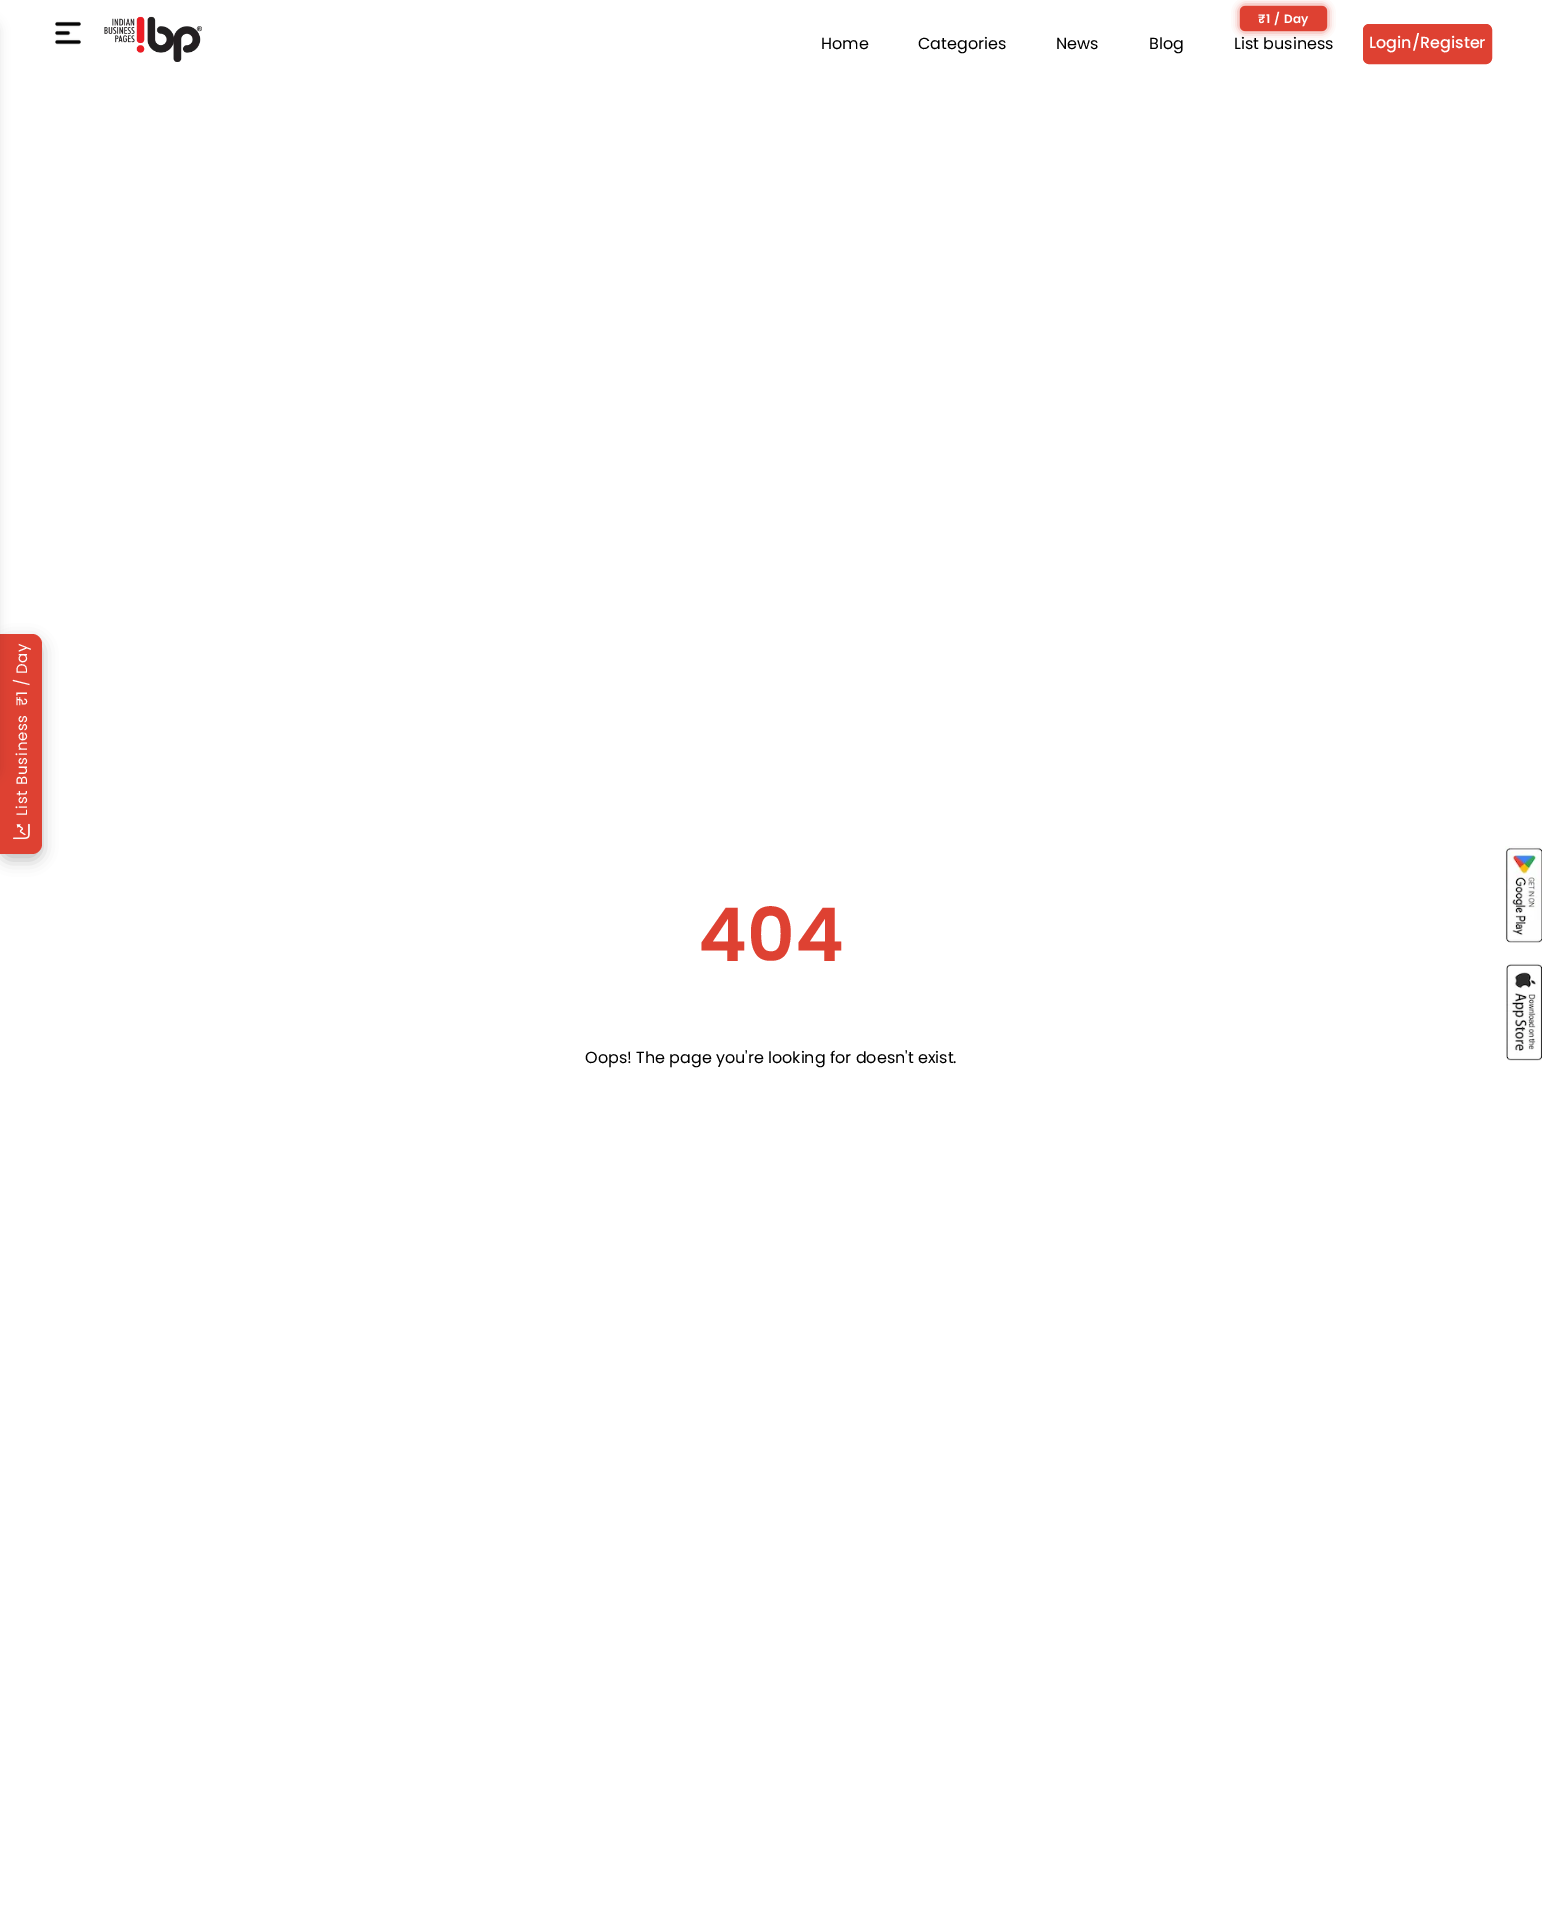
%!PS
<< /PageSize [1542 1907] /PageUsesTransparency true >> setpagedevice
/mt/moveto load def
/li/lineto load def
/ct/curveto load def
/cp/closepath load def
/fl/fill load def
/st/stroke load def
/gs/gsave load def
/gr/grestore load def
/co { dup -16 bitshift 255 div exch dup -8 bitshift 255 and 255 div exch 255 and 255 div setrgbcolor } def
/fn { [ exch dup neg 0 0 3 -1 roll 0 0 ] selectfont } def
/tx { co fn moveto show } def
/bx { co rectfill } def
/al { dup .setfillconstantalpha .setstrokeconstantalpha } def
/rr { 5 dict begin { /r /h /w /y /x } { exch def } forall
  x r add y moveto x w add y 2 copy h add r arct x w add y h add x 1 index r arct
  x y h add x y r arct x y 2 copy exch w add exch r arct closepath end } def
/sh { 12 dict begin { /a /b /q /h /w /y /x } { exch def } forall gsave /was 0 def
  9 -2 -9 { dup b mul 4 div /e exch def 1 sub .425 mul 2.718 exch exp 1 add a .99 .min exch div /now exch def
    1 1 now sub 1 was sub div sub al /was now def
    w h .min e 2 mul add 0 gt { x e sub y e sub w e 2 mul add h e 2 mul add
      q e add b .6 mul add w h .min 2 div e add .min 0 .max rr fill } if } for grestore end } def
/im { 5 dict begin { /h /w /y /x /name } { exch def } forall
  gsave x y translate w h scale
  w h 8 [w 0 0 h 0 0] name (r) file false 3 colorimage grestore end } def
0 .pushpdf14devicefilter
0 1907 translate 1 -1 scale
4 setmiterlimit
0 0 1542 1907 16#FFFFFF bx
16#000000 co
0 640 42 220 10 7.5 .25 sh
16#DE4132 co
0 634 mt 32 634 li 37.5 634 42 638.5 42 644 ct 42 844 li 42 849.5 37.5 854 32 854 ct 0 854 li cp fl
16#000000 co
-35 17 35 765 20 5 .1 sh
16#DE4132 co
1240 6 87 25 5 4 .8 sh
1240 6 87 25 5 rr fl
1363.5 24.5 128 39 5.5 rr gs fl gr
st
(media/1.raw) 13 823 17 17 im
(media/2.raw) 1505 846 37 97 im
(media/3.raw) 1506 963 36 98 im
(media/4.raw) 55 21 26 24 im
(media/5.raw) 104 16 98 46 im
(Home) 821 49 /Poppins-Regular 16 16#000000 tx
(Categories) 918 49 /Poppins-Regular 16 16#000000 tx
(News) 1056 49 /Poppins-Regular 16 16#000000 tx
(Blog) 1149 49 /Poppins-Regular 16 16#000000 tx
/Poppins-SemiBold 12 fn
16#FFFFFF co
1258 23 mt .5 0 (₹1 / Day) ashow
(List business) 1234 49 /Poppins-Regular 16 16#000000 tx
(Login/Register) 1369 48 /Poppins-Medium 16 16#FFFFFF tx
/Poppins-Regular 15 fn
gs 27 706 translate -90 rotate 0 0 mt .5 0 (₹1 / Day) ashow gr
gs 27 816 translate -90 rotate 0 0 mt .75 0 (List Business) ashow gr
(404) 698 961 /Poppins-SemiBold 74 16#DE4132 tx
(Oops! The page you're looking for doesn't exist.) 585 1063 /Poppins-Regular 16 16#000000 tx
.poppdf14devicefilter showpage
